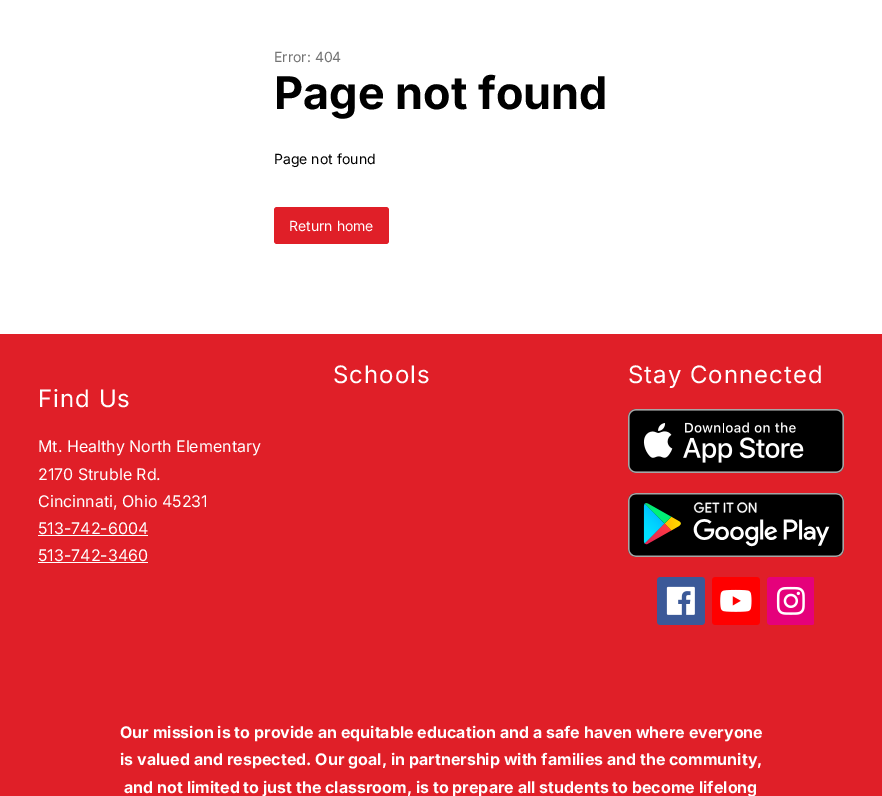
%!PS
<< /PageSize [882 796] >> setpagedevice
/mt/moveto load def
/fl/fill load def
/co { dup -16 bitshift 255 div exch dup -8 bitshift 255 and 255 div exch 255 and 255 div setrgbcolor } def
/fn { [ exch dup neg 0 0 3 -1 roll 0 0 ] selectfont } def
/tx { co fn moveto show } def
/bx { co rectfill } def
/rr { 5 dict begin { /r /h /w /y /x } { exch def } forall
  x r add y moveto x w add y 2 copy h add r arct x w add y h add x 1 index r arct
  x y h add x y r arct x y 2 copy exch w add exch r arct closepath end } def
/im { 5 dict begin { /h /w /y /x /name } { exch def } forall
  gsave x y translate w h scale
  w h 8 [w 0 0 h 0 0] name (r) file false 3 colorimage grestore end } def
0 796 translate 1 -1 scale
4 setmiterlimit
0 0 882 796 16#FFFFFF bx
16#E01F28 co
274 207 115 37 3 rr fl
0 334 882 462 16#E01F28 bx
(media/1.raw) 628 409 216 64 im
(media/2.raw) 628 493 216 64 im
(media/3.raw) 657 577 48 48 im
(media/4.raw) 712 577 48 48 im
(media/5.raw) 767 577 47 48 im
38 535 110 1 16#FFFFFF bx
38 562 110 1 16#FFFFFF bx
(Error: 404) 274 62 /Inter-Regular 14 16#747474 tx
(Page not found) 274 109 /Inter-Bold 45 16#000000 tx
(Page not found) 274 164 /Inter-Regular 14 16#000000 tx
(Return home) 289 231 /Inter-Regular 14 16#FFFFFF tx
/Inter-Regular 24 fn
333 383 mt 1 0 (Schools) ashow
628 383 mt 1 0 (Stay Connected) ashow
38 407 mt 1 0 (Find Us) ashow
(Mt. Healthy North Elementary) 38 452 /Inter-Regular 16 16#FFFFFF tx
(2170 Struble Rd.) 38 480 /Inter-Regular 16 16#FFFFFF tx
(Cincinnati, Ohio 45231) 38 507 /Inter-Regular 16 16#FFFFFF tx
(513-742-6004) 38 534 /Inter-Regular 16 16#FFFFFF tx
(513-742-3460) 38 561 /Inter-Regular 16 16#FFFFFF tx
(Our mission is to provide an equitable education and a safe haven where everyone) 120 738 /Inter-Bold 16 16#FFFFFF tx
(is valued and respected. Our goal, in partnership with families and the community,) 120 765 /Inter-Bold 16 16#FFFFFF tx
(and not limited to just the classroom, is to prepare all students to become lifelong) 124 793 /Inter-Bold 16 16#FFFFFF tx
showpage
